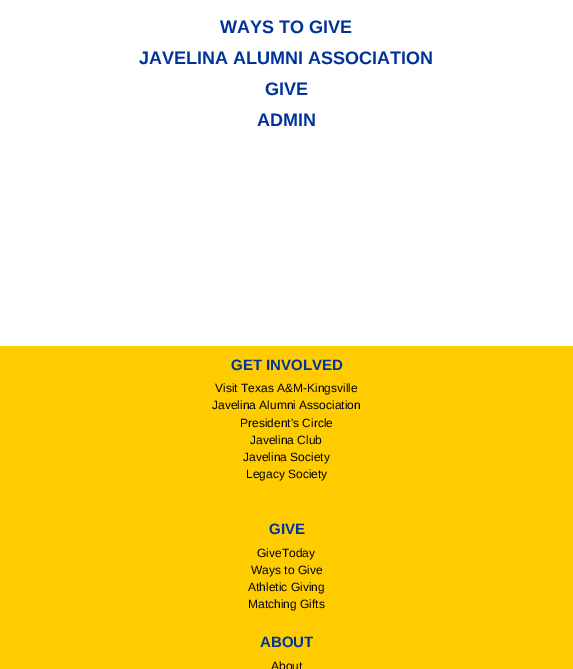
%!PS
<< /PageSize [573 669] >> setpagedevice
/co { dup -16 bitshift 255 div exch dup -8 bitshift 255 and 255 div exch 255 and 255 div setrgbcolor } def
/fn { [ exch dup neg 0 0 3 -1 roll 0 0 ] selectfont } def
/tx { co fn moveto show } def
/bx { co rectfill } def
0 669 translate 1 -1 scale
4 setmiterlimit
0 0 573 669 16#FFCC00 bx
0 0 573 346 16#FFFFFF bx
(WAYS TO GIVE) 220 33 /LiberationSans-Bold 18 16#003399 tx
(JAVELINA ALUMNI ASSOCIATION) 139 64 /LiberationSans-Bold 18 16#003399 tx
(GIVE) 265 95 /LiberationSans-Bold 18 16#003399 tx
(ADMIN) 257 126 /LiberationSans-Bold 18 16#003399 tx
(GET INVOLVED) 231 370 /LiberationSans-Bold 15 16#003399 tx
(Visit Texas A&M-Kingsville) 215 392 /LiberationSans-Regular 12 16#000000 tx
(Javelina Alumni Association) 212 409 /LiberationSans-Regular 12 16#000000 tx
(President's Circle) 240 427 /LiberationSans-Regular 12 16#000000 tx
(Javelina Club) 250 444 /LiberationSans-Regular 12 16#000000 tx
(Javelina Society) 243 461 /LiberationSans-Regular 12 16#000000 tx
(Legacy Society) 246 478 /LiberationSans-Regular 12 16#000000 tx
(GIVE) 269 534 /LiberationSans-Bold 15 16#003399 tx
(GiveToday) 257 557 /LiberationSans-Regular 12 16#000000 tx
(Ways to Give) 251 574 /LiberationSans-Regular 12 16#000000 tx
(Athletic Giving) 248 591 /LiberationSans-Regular 12 16#000000 tx
(Matching Gifts) 248 608 /LiberationSans-Regular 12 16#000000 tx
(ABOUT) 260 647 /LiberationSans-Bold 15 16#003399 tx
(About) 271 670 /LiberationSans-Regular 12 16#000000 tx
showpage
